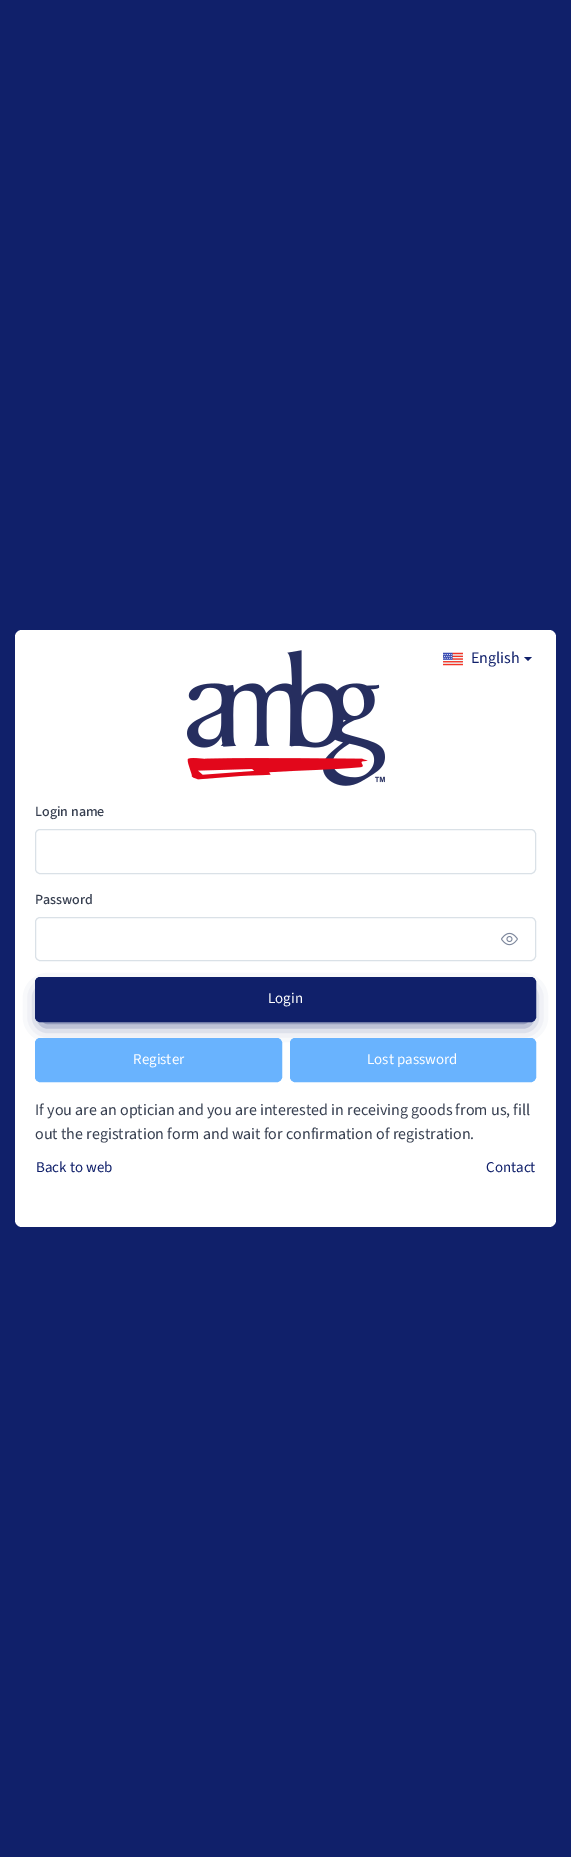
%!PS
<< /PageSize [571 1857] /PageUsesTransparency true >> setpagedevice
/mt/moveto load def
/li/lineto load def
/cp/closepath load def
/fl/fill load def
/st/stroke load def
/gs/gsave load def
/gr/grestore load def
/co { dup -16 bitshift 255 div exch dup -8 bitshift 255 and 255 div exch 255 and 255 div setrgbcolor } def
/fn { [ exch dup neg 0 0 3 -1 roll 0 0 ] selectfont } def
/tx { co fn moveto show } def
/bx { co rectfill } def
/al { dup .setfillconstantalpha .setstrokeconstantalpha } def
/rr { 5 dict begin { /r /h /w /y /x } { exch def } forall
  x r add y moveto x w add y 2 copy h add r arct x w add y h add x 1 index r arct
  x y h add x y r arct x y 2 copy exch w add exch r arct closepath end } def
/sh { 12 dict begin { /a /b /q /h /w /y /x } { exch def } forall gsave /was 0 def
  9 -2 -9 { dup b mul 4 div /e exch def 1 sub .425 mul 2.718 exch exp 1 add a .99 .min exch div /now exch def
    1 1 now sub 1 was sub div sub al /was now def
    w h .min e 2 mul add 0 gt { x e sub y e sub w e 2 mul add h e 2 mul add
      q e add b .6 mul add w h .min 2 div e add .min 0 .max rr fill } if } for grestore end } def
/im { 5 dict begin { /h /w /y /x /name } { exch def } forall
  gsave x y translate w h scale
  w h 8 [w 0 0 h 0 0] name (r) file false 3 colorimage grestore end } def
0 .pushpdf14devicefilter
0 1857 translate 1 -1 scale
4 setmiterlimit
0 0 571 1857 16#10206A bx
16#FFFFFF co
15 630 541 597 7 rr fl
(media/1.raw) 187 650 198 136 im
(media/2.raw) 443 652 20 14 im
16#10206A co
524 657 mt 532 657 li 528 661 li cp fl
16#DAE1E7 co
35.5 829.5 500 44 4.5 rr st
35.5 917.5 500 43 4.5 rr st
(media/3.raw) 501 932 17 14 im
16#10206A co
43 993 485 29 0 9 .9 sh
35.5 977.5 500 44 4.5 rr gs fl gr
st
16#69B3FE co
35.5 1038.5 246 43 4.5 rr gs fl gr
st
290.5 1038.5 245 43 4.5 rr gs fl gr
st
(English) 471 663 /SourceSans3-Regular 16 16#10206A tx
(Login name) 35 816 /SourceSans3-Medium 14 16#373F50 tx
(Password) 35 904 /SourceSans3-Medium 14 16#373F50 tx
(Login) 268 1003 /SourceSans3-Regular 15 16#FFFFFF tx
(Register) 133 1064 /SourceSans3-Regular 15 16#FFFFFF tx
(Lost password) 367 1064 /SourceSans3-Regular 15 16#FFFFFF tx
(If you are an optician and you are interested in receiving goods from us, fill) 35 1115 /SourceSans3-Regular 16 16#373F50 tx
(out the registration form and wait for confirmation of registration.) 35 1139 /SourceSans3-Regular 16 16#373F50 tx
(Back to web) 36 1172 /SourceSans3-Regular 15 16#10206A tx
(Contact) 486 1172 /SourceSans3-Regular 15 16#10206A tx
.poppdf14devicefilter showpage
